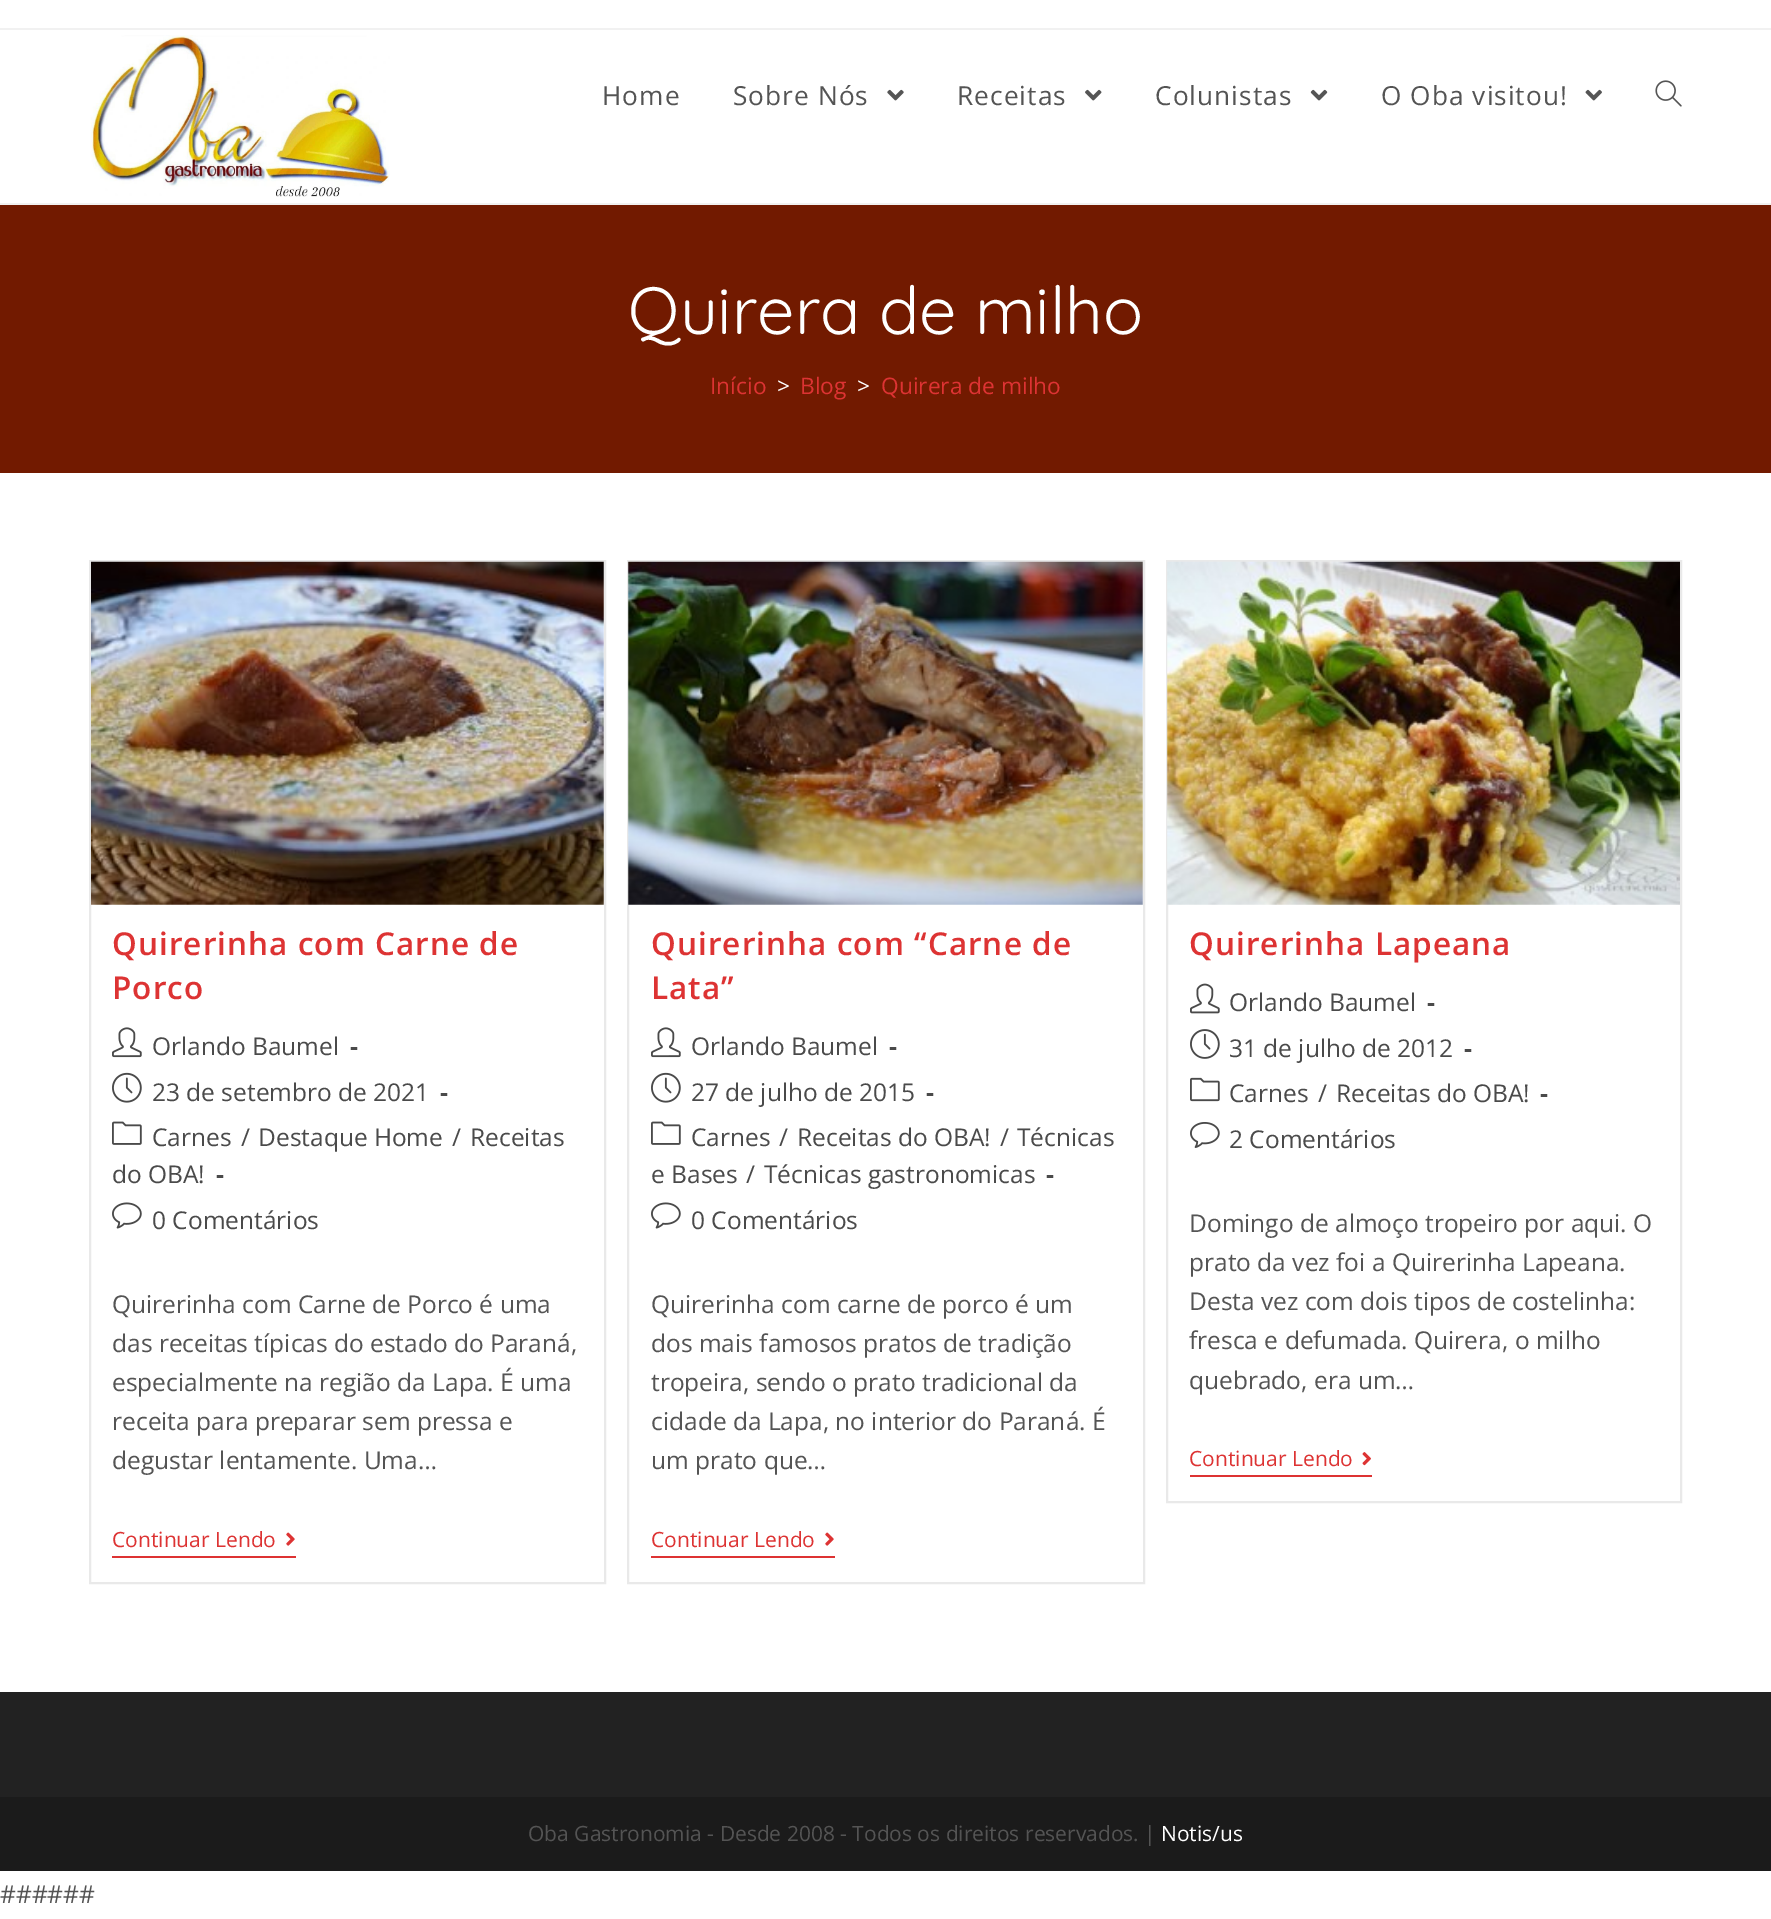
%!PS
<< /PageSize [1771 1919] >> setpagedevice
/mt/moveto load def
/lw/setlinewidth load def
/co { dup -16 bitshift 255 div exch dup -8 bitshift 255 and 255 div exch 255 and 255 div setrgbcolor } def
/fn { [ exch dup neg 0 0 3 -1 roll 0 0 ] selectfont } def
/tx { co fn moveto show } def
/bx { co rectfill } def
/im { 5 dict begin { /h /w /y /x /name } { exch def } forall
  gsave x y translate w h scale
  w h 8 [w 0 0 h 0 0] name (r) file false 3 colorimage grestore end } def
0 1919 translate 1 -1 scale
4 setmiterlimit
0 0 1771 1919 16#FFFFFF bx
0 28 1771 2 16#F1F1F1 bx
0 203 1771 2 16#F1F1F1 bx
(media/1.raw) 90 35 300 162 im
(media/2.raw) 887 89 17 12 im
(media/3.raw) 1085 89 17 12 im
(media/4.raw) 1310 89 18 12 im
(media/5.raw) 1585 89 17 12 im
(media/6.raw) 1655 80 27 27 im
0 205 1771 268 16#721A00 bx
16#E9E9E9 co
2 lw
90 561 515 1022 rectstroke
(media/7.raw) 91 561 513 344 im
(media/8.raw) 112 1027 30 31 im
(media/9.raw) 112 1072 30 31 im
(media/10.raw) 112 1121 30 24 im
(media/11.raw) 112 1202 30 27 im
112 1556 184 2 16#DD3333 bx
(media/12.raw) 286 1532 9 14 im
16#E9E9E9 co
628 561 516 1022 rectstroke
(media/13.raw) 628 561 515 344 im
(media/8.raw) 651 1027 30 31 im
(media/9.raw) 651 1072 30 31 im
(media/10.raw) 651 1121 30 24 im
(media/11.raw) 651 1202 30 27 im
651 1556 184 2 16#DD3333 bx
(media/12.raw) 825 1532 9 14 im
16#E9E9E9 co
1167 561 514 941 rectstroke
(media/14.raw) 1167 561 513 344 im
(media/15.raw) 1190 983 30 31 im
(media/16.raw) 1190 1029 30 30 im
(media/17.raw) 1190 1077 30 25 im
(media/18.raw) 1190 1122 30 26 im
1190 1475 182 2 16#DD3333 bx
(media/19.raw) 1362 1452 9 14 im
0 1692 1771 105 16#222222 bx
0 1797 1771 74 16#1B1B1B bx
/OpenSans-Regular 26.25 fn
16#545454 co
602 105 mt 1.05 0 (Home) ashow
733 105 mt 1.05 0 (Sobre Nós) ashow
957 105 mt 1.05 0 (Receitas) ashow
1155 105 mt 1.05 0 (Colunistas) ashow
1381 105 mt 1.05 0 (O Oba visitou!) ashow
(Quirera de milho) 628 334 /Quicksand-Regular 66.5 16#FFFFFF tx
(Início) 710 394 /OpenSans-Regular 22.75 16#DD3333 tx
(>) 777 394 /OpenSans-Regular 22.75 16#FFFFFF tx
(Blog) 800 394 /OpenSans-Regular 22.75 16#DD3333 tx
(>) 857 394 /OpenSans-Regular 22.75 16#FFFFFF tx
(Quirera de milho) 881 394 /OpenSans-Regular 22.75 16#DD3333 tx
/OpenSans-SemiBold 31.5 fn
112 955 mt 1.05 0 (Quirerinha com Carne de) ashow
112 999 mt 1.05 0 (Porco) ashow
(Orlando Baumel) 152 1055 /OpenSans-Regular 24.5 16#4A4A4A tx
(-) 350 1055 /OpenSans-Bold 24.5 16#4A4A4A tx
(23 de setembro de 2021) 152 1101 /OpenSans-Regular 24.5 16#4A4A4A tx
(-) 440 1101 /OpenSans-Bold 24.5 16#4A4A4A tx
(Carnes) 152 1146 /OpenSans-Regular 24.5 16#4A4A4A tx
(/) 241 1146 /OpenSans-Regular 24.5 16#4A4A4A tx
(Destaque Home) 258 1146 /OpenSans-Regular 24.5 16#4A4A4A tx
(/) 452 1146 /OpenSans-Regular 24.5 16#4A4A4A tx
(Receitas) 470 1146 /OpenSans-Regular 24.5 16#4A4A4A tx
(do OBA!) 112 1183 /OpenSans-Regular 24.5 16#4A4A4A tx
(-) 216 1183 /OpenSans-Bold 24.5 16#4A4A4A tx
(0 Comentários) 152 1229 /OpenSans-Regular 24.5 16#4A4A4A tx
(Quirerinha com Carne de Porco é uma) 112 1313 /OpenSans-Regular 24.5 16#545454 tx
(das receitas típicas do estado do Paraná,) 112 1352 /OpenSans-Regular 24.5 16#545454 tx
(especialmente na região da Lapa. É uma) 112 1391 /OpenSans-Regular 24.5 16#545454 tx
(receita para preparar sem pressa e) 112 1430 /OpenSans-Regular 24.5 16#545454 tx
(degustar lentamente. Uma…) 112 1469 /OpenSans-Regular 24.5 16#545454 tx
(Continuar Lendo) 112 1547 /OpenSans-Regular 21 16#DD3333 tx
/OpenSans-SemiBold 31.5 fn
651 955 mt 1.05 0 (Quirerinha com “Carne de) ashow
651 999 mt 1.05 0 (Lata”) ashow
(Orlando Baumel) 691 1055 /OpenSans-Regular 24.5 16#4A4A4A tx
(-) 889 1055 /OpenSans-Bold 24.5 16#4A4A4A tx
(27 de julho de 2015) 691 1101 /OpenSans-Regular 24.5 16#4A4A4A tx
(-) 926 1101 /OpenSans-Bold 24.5 16#4A4A4A tx
(Carnes) 691 1146 /OpenSans-Regular 24.5 16#4A4A4A tx
(/) 779 1146 /OpenSans-Regular 24.5 16#4A4A4A tx
(Receitas do OBA!) 797 1146 /OpenSans-Regular 24.5 16#4A4A4A tx
(/) 1000 1146 /OpenSans-Regular 24.5 16#4A4A4A tx
(Técnicas) 1017 1146 /OpenSans-Regular 24.5 16#4A4A4A tx
(e Bases) 651 1183 /OpenSans-Regular 24.5 16#4A4A4A tx
(/) 746 1183 /OpenSans-Regular 24.5 16#4A4A4A tx
(Técnicas gastronomicas) 764 1183 /OpenSans-Regular 24.5 16#4A4A4A tx
(-) 1046 1183 /OpenSans-Bold 24.5 16#4A4A4A tx
(0 Comentários) 691 1229 /OpenSans-Regular 24.5 16#4A4A4A tx
(Quirerinha com carne de porco é um) 651 1313 /OpenSans-Regular 24.5 16#545454 tx
(dos mais famosos pratos de tradição) 651 1352 /OpenSans-Regular 24.5 16#545454 tx
(tropeira, sendo o prato tradicional da) 651 1391 /OpenSans-Regular 24.5 16#545454 tx
(cidade da Lapa, no interior do Paraná. É) 651 1430 /OpenSans-Regular 24.5 16#545454 tx
(um prato que…) 651 1469 /OpenSans-Regular 24.5 16#545454 tx
(Continuar Lendo) 651 1547 /OpenSans-Regular 21 16#DD3333 tx
/OpenSans-SemiBold 31.5 fn
1189 955 mt 1.05 0 (Quirerinha Lapeana) ashow
(Orlando Baumel) 1229 1011 /OpenSans-Regular 24.5 16#4A4A4A tx
(-) 1427 1011 /OpenSans-Bold 24.5 16#4A4A4A tx
(31 de julho de 2012) 1229 1057 /OpenSans-Regular 24.5 16#4A4A4A tx
(-) 1464 1057 /OpenSans-Bold 24.5 16#4A4A4A tx
(Carnes) 1229 1102 /OpenSans-Regular 24.5 16#4A4A4A tx
(/) 1318 1102 /OpenSans-Regular 24.5 16#4A4A4A tx
(Receitas do OBA!) 1336 1102 /OpenSans-Regular 24.5 16#4A4A4A tx
(-) 1540 1102 /OpenSans-Bold 24.5 16#4A4A4A tx
(2 Comentários) 1229 1148 /OpenSans-Regular 24.5 16#4A4A4A tx
(Domingo de almoço tropeiro por aqui. O) 1189 1232 /OpenSans-Regular 24.5 16#545454 tx
(prato da vez foi a Quirerinha Lapeana.) 1189 1271 /OpenSans-Regular 24.5 16#545454 tx
(Desta vez com dois tipos de costelinha:) 1189 1310 /OpenSans-Regular 24.5 16#545454 tx
(fresca e defumada. Quirera, o milho) 1189 1349 /OpenSans-Regular 24.5 16#545454 tx
(quebrado, era um…) 1189 1389 /OpenSans-Regular 24.5 16#545454 tx
(Continuar Lendo) 1189 1466 /OpenSans-Regular 21 16#DD3333 tx
(Oba Gastronomia - Desde 2008 - Todos os direitos reservados. |) 528 1841 /OpenSans-Regular 21 16#545454 tx
(Notis/us) 1161 1841 /OpenSans-Regular 21 16#FFFFFF tx
(######) 0 1903 /OpenSans-Regular 24.5 16#545454 tx
showpage
